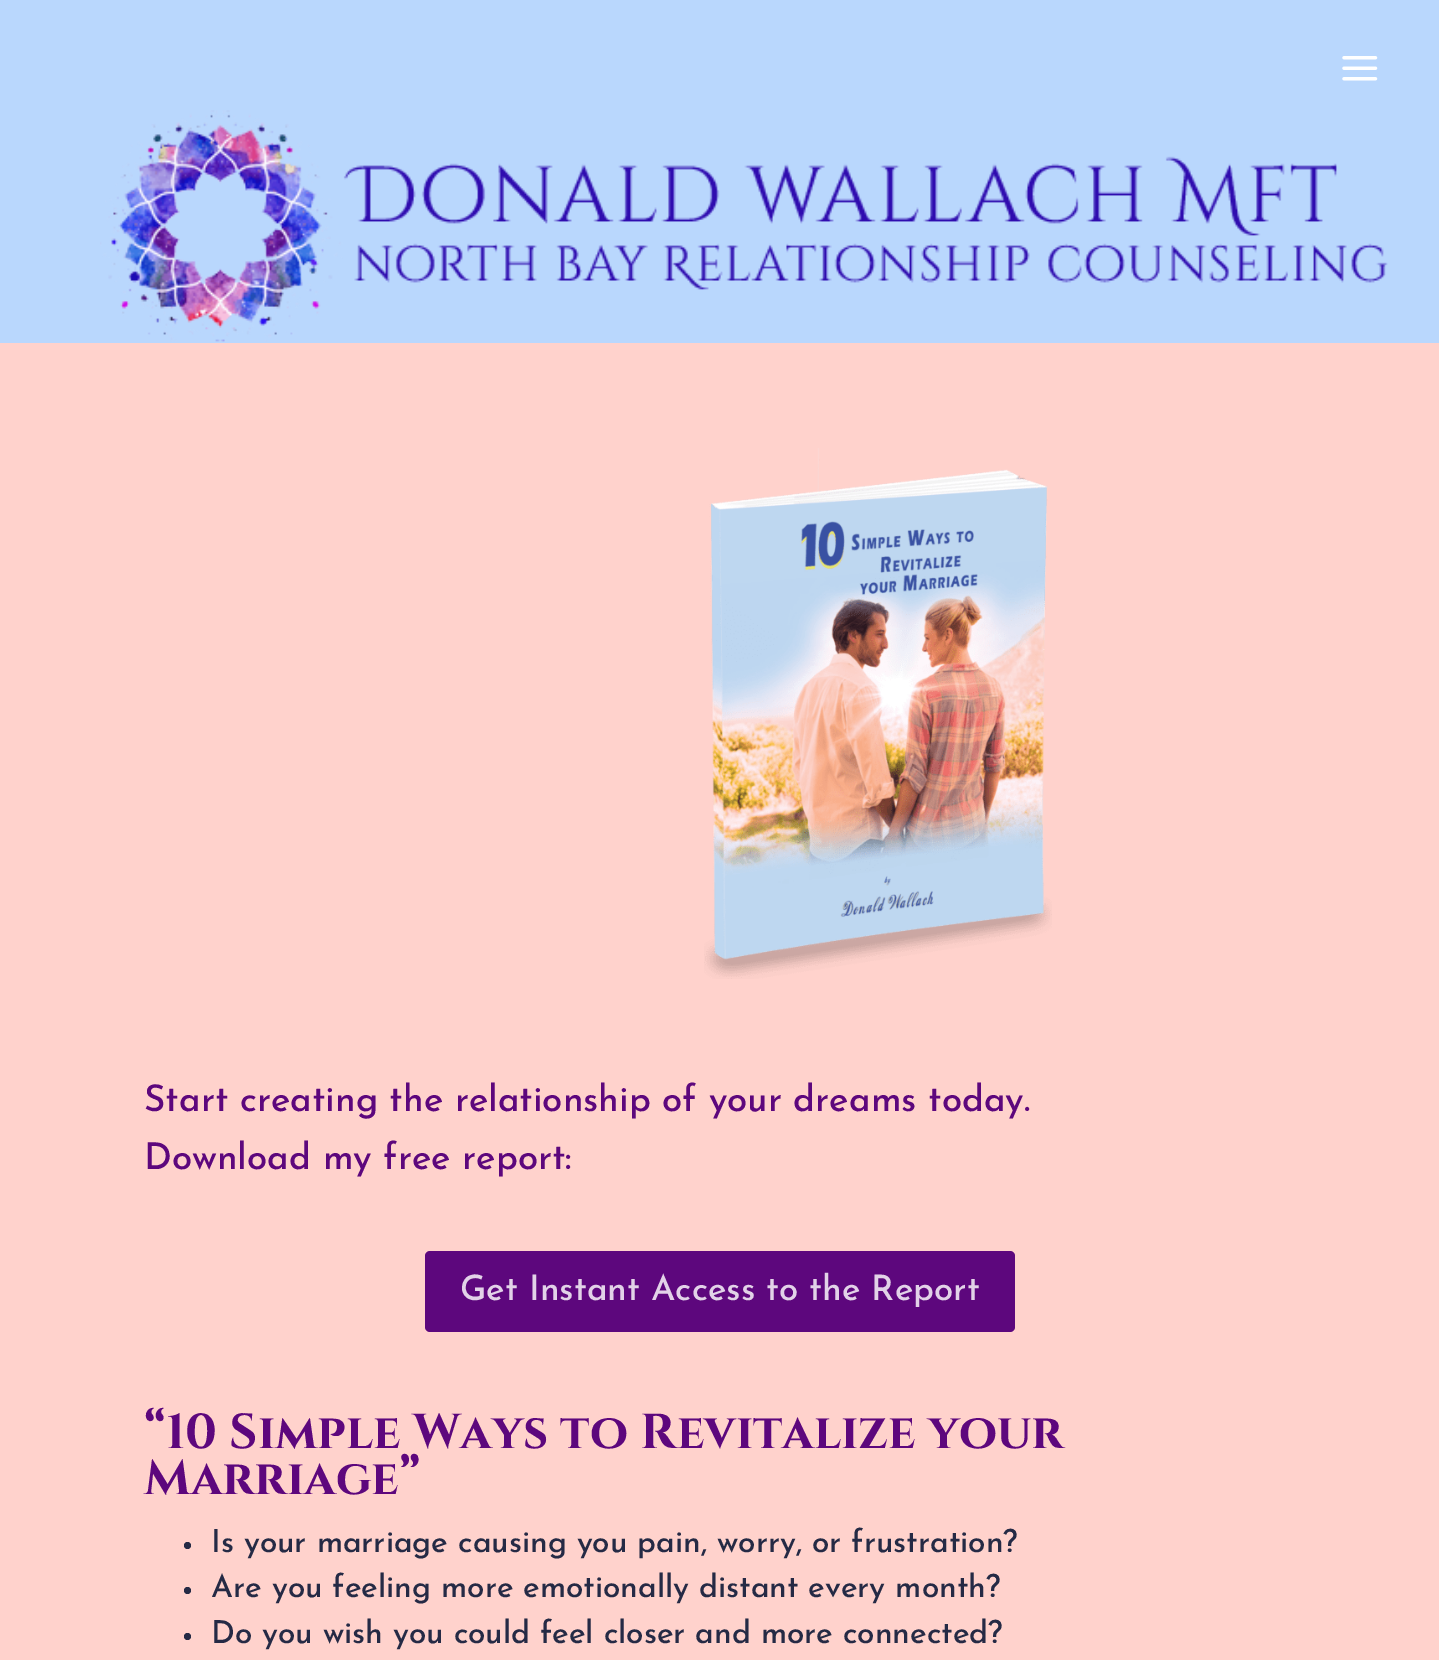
%!PS
<< /PageSize [1439 1660] >> setpagedevice
/fl/fill load def
/co { dup -16 bitshift 255 div exch dup -8 bitshift 255 and 255 div exch 255 and 255 div setrgbcolor } def
/fn { [ exch dup neg 0 0 3 -1 roll 0 0 ] selectfont } def
/tx { co fn moveto show } def
/bx { co rectfill } def
/ci { newpath 0 360 arc closepath } def
/rr { 5 dict begin { /r /h /w /y /x } { exch def } forall
  x r add y moveto x w add y 2 copy h add r arct x w add y h add x 1 index r arct
  x y h add x y r arct x y 2 copy exch w add exch r arct closepath end } def
/im { 5 dict begin { /h /w /y /x /name } { exch def } forall
  gsave x y translate w h scale
  w h 8 [w 0 0 h 0 0] name (r) file false 3 colorimage grestore end } def
0 1660 translate 1 -1 scale
4 setmiterlimit
0 0 1439 1660 16#B9D7FD bx
(media/1.raw) 1342 56 36 25 im
(media/2.raw) 100 110 1288 232 im
0 343 1439 1317 16#FFD2CC bx
(media/3.raw) 704 448 348 531 im
16#5D077D co
425 1251 590 81 5 rr fl
16#252A45 co
187.5 1545.5 3.5 ci fl
187.5 1590.5 3.5 ci fl
187.5 1636.5 3.5 ci fl
(Start creating the relationship of your dreams today.) 144 1111 /JosefinSans-Medium 36.75 16#5D077D tx
(Download my free report:) 144 1169 /JosefinSans-Medium 36.75 16#5D077D tx
(Get Instant Access to the Report) 460 1300 /JosefinSans-Medium 35 16#E2D2E8 tx
(“10 Simple Ways to Revitalize your) 144 1448 /Cinzel-Bold 49 16#5D077D tx
(Marriage”) 144 1494 /Cinzel-Bold 49 16#5D077D tx
(Is your marriage causing you pain, worry, or frustration?) 211 1552 /JosefinSans-Medium 31.5 16#252A45 tx
(Are you feeling more emotionally distant every month?) 211 1597 /JosefinSans-Medium 31.5 16#252A45 tx
(Do you wish you could feel closer and more connected?) 211 1643 /JosefinSans-Medium 31.5 16#252A45 tx
showpage
